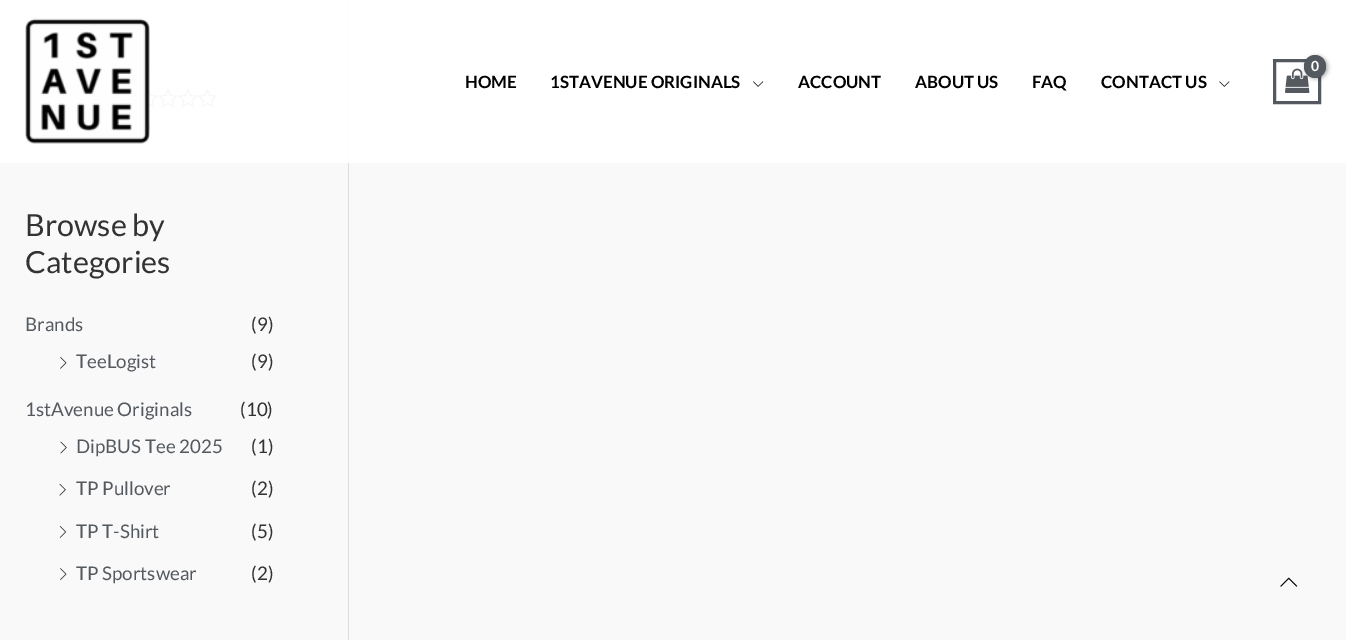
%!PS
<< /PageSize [1346 640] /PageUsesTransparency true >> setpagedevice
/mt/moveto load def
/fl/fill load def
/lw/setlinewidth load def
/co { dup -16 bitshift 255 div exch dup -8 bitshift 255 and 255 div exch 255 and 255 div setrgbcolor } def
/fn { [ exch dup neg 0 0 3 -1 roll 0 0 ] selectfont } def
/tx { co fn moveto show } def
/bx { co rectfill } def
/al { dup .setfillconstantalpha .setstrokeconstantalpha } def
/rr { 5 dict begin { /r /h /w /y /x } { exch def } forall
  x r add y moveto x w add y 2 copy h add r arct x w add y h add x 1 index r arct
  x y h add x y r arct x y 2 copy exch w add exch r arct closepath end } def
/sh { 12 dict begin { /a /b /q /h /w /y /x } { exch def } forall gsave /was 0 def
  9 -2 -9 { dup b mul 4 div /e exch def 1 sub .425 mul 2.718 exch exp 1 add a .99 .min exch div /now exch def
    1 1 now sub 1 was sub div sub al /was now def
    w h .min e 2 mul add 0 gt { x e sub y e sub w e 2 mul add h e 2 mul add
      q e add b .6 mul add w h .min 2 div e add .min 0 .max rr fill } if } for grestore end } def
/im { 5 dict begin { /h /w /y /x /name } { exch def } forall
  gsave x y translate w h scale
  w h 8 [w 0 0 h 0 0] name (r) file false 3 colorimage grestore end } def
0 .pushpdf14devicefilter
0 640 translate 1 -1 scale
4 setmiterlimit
0 0 1346 640 16#F9F9F9 bx
348 0 1 640 16#DDDDDD bx
25 4 248 1 16#DDDDDD bx
(media/5.raw) 25 44 3 74 im
(media/6.raw) 147 89 71 19 im
0.95 al
0 0 1346 163 16#FFFFFF bx
1 al
(media/1.raw) 25 18 125 126 im
16#54595F co
3 lw
1274.5 60.5 45 42 rectstroke
(media/2.raw) 1285 68 25 25 im
16#000000 co
1305 56 23 23 11.5 2 .3 sh
16#54595F co
1304 55 22 23 11 rr fl
(media/3.raw) 753 81 11 6 im
(media/4.raw) 1219 81 11 6 im
(media/7.raw) 60 357 7 12 im
(media/8.raw) 60 441 7 13 im
(media/9.raw) 59 483 7 13 im
(media/10.raw) 59 526 8 12 im
(media/11.raw) 60 568 7 12 im
(media/12.raw) 1280 577 18 10 im
/Lato-Bold 14 fn
16#FFFFFF co
1311 71 mt -1 0 (0) ashow
(HOME) 465 88 /Lato-Bold 16.9 16#000000 tx
(1STAVENUE ORIGINALS) 550 88 /Lato-Bold 16.9 16#000000 tx
(ACCOUNT) 798 88 /Lato-Bold 16.9 16#000000 tx
(ABOUT US) 915 88 /Lato-Bold 16.9 16#000000 tx
(FAQ) 1032 88 /Lato-Bold 16.9 16#000000 tx
(CONTACT US) 1101 88 /Lato-Bold 16.9 16#000000 tx
(Browse by) 25 236 /Lato-Regular 30.5 16#333333 tx
(Categories) 25 273 /Lato-Regular 30.5 16#333333 tx
(Brands) 25 331 /Lato-Regular 18.75 16#54595F tx
(\(9\)) 251 331 /Lato-Regular 18.75 16#333333 tx
(TeeLogist) 76 368 /Lato-Regular 18.75 16#54595F tx
(\(9\)) 251 368 /Lato-Regular 18.75 16#333333 tx
(1stAvenue Originals) 25 416 /Lato-Regular 18.75 16#54595F tx
(\(10\)) 240 416 /Lato-Regular 18.75 16#333333 tx
(DipBUS Tee 2025) 76 453 /Lato-Regular 18.75 16#54595F tx
(\(1\)) 251 453 /Lato-Regular 18.75 16#333333 tx
(TP Pullover) 76 495 /Lato-Regular 18.75 16#54595F tx
(\(2\)) 251 495 /Lato-Regular 18.75 16#333333 tx
(TP T-Shirt) 76 538 /Lato-Regular 18.75 16#54595F tx
(\(5\)) 251 538 /Lato-Regular 18.75 16#333333 tx
(TP Sportswear) 76 580 /Lato-Regular 18.75 16#54595F tx
(\(2\)) 251 580 /Lato-Regular 18.75 16#333333 tx
.poppdf14devicefilter showpage
